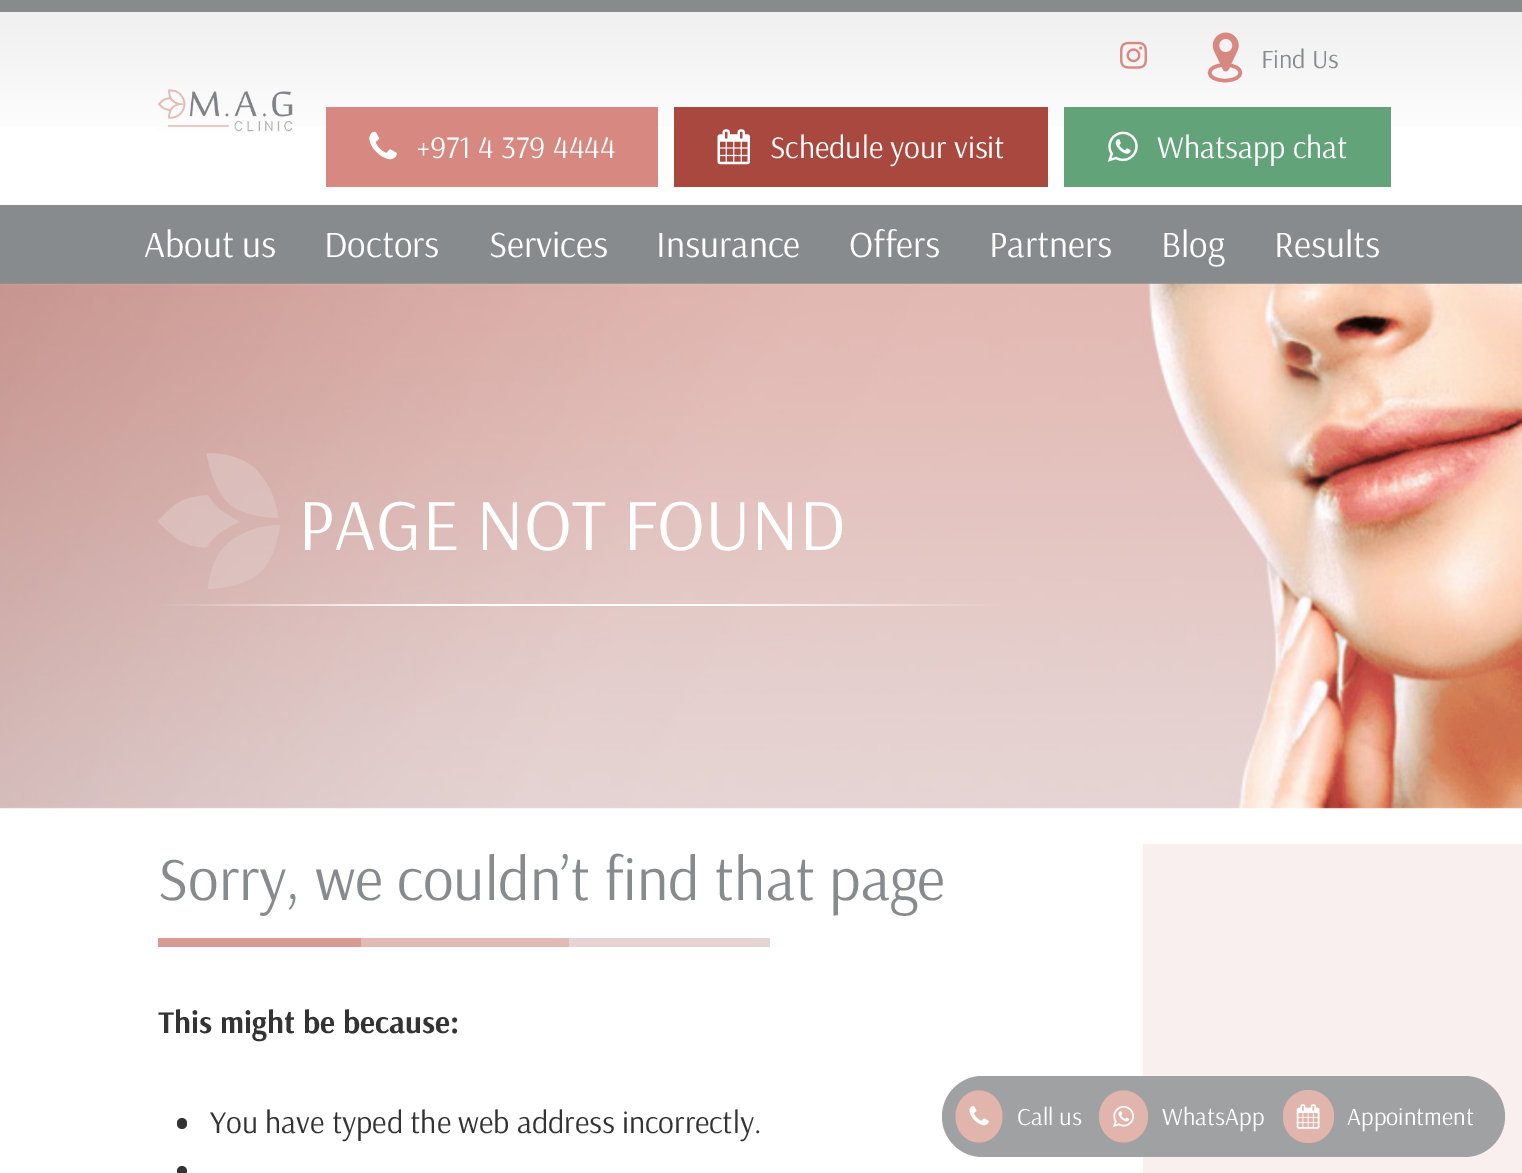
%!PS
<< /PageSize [1522 1173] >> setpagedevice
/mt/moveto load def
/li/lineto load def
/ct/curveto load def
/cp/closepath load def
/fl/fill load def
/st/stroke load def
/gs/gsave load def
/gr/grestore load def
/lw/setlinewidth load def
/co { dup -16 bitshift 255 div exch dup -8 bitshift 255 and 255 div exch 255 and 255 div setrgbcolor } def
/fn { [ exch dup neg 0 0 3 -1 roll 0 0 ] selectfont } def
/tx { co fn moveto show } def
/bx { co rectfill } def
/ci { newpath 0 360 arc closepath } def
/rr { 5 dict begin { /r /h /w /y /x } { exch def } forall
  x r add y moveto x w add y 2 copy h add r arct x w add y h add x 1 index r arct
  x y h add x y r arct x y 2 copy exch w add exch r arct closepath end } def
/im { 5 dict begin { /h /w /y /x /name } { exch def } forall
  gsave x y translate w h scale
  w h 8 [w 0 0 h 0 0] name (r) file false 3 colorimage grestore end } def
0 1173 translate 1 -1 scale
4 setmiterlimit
0 0 1522 1173 16#FFFFFF bx
gs 0 12 mt 1522 12 li 1522 127 li 0 127 li cp clip newpath
<< /ShadingType 2 /ColorSpace /DeviceRGB /Coords [761 12 761 284] /Extend [true true] /Function << /FunctionType 3 /Domain [0 1] /Functions [<< /FunctionType 2 /Domain [0 1] /C0 [.937 .937 .937] /C1 [1 1 1] /N 1 >> << /FunctionType 2 /Domain [0 1] /C0 [1 1 1] /C1 [1 1 1] /N 1 >>] /Bounds [.5] /Encode [0 1 0 1] >> >> shfill gr
0 0 1522 12 16#888B8C bx
(media/1.raw) 1120 41 27 28 im
(media/2.raw) 1212 32 27 40 im
16#D78981 co
3.5 lw
1225 65 mt 1245.5 65 1245.5 80.5 1225 80.5 ct 1204.5 80.5 1204.5 65 1225 65 ct cp st
326 107 332 80 16#D78981 bx
(media/3.raw) 369 131 28 29 im
674 107 374 80 16#A9483E bx
(media/4.raw) 717 129 33 36 im
1064 107 327 80 16#62A37A bx
(media/5.raw) 1107 131 31 31 im
(media/6.raw) 157 89 136 43 im
0 205 1522 79 16#888B8D bx
(media/7.raw) 0 283 1522 526 im
(media/8.raw) 158 453 122 136 im
158 938 203 9 16#D79B94 bx
361 938 208 9 16#E3B9B3 bx
569 938 201 9 16#E5D4D3 bx
16#333333 co
177 1118 10 11 5 rr fl
182 1171 5 ci fl
1143 844 379 329 16#F9EFEE bx
16#A0A1A2 co
942 1076 563 81 40.5 rr fl
16#E1B4AC co
979 1090.5 mt 992 1090.5 1002.5 1102 1002.5 1116.5 ct 1002.5 1131 992 1142.5 979 1142.5 ct 966 1142.5 955.5 1131 955.5 1116.5 ct 955.5 1102 966 1090.5 979 1090.5 ct cp fl
(media/9.raw) 969 1106 20 20 im
1123.5 1090.5 mt 1137 1090.5 1148 1102 1148 1116.5 ct 1148 1131 1137 1142.5 1123.5 1142.5 ct 1110 1142.5 1099 1131 1099 1116.5 ct 1099 1102 1110 1090.5 1123.5 1090.5 ct cp fl
(media/10.raw) 1113 1105 21 22 im
1283 1090 51 53 25.5 rr fl
(media/11.raw) 1296 1104 24 25 im
(Find Us) 1261 68 /Arsenal-Regular 26 16#888B8D tx
(+971 4 379 4444) 417 158 /Arsenal-Regular 31.5 16#FFFFFF tx
(Schedule your visit) 770 158 /Arsenal-Regular 31.5 16#FFFFFF tx
(Whatsapp chat) 1157 158 /Arsenal-Regular 31.5 16#FFFFFF tx
(About us) 144 257 /Arsenal-Regular 37 16#FFFFFF tx
(Doctors) 324 257 /Arsenal-Regular 37 16#FFFFFF tx
(Services) 489 257 /Arsenal-Regular 37 16#FFFFFF tx
(Insurance) 656 257 /Arsenal-Regular 37 16#FFFFFF tx
(Offers) 849 257 /Arsenal-Regular 37 16#FFFFFF tx
(Partners) 989 257 /Arsenal-Regular 37 16#FFFFFF tx
(Blog) 1161 257 /Arsenal-Regular 37 16#FFFFFF tx
(Results) 1274 257 /Arsenal-Regular 37 16#FFFFFF tx
(PAGE NOT FOUND) 298 550 /Arsenal-Regular 73.5 16#FFFFFF tx
(Sorry, we couldn’t find that page) 158 900 /Arsenal-Regular 61.25 16#888B8D tx
(This might be because:) 158 1033 /Arsenal-Bold 31.5 16#333333 tx
(You have typed the web address incorrectly.) 210 1133 /Arsenal-Regular 31.5 16#333333 tx
(Call us) 1017 1125 /Arsenal-Regular 24.5 16#FFFFFF tx
(WhatsApp) 1162 1125 /Arsenal-Regular 24.5 16#FFFFFF tx
(Appointment) 1347 1125 /Arsenal-Regular 24.5 16#FFFFFF tx
showpage
